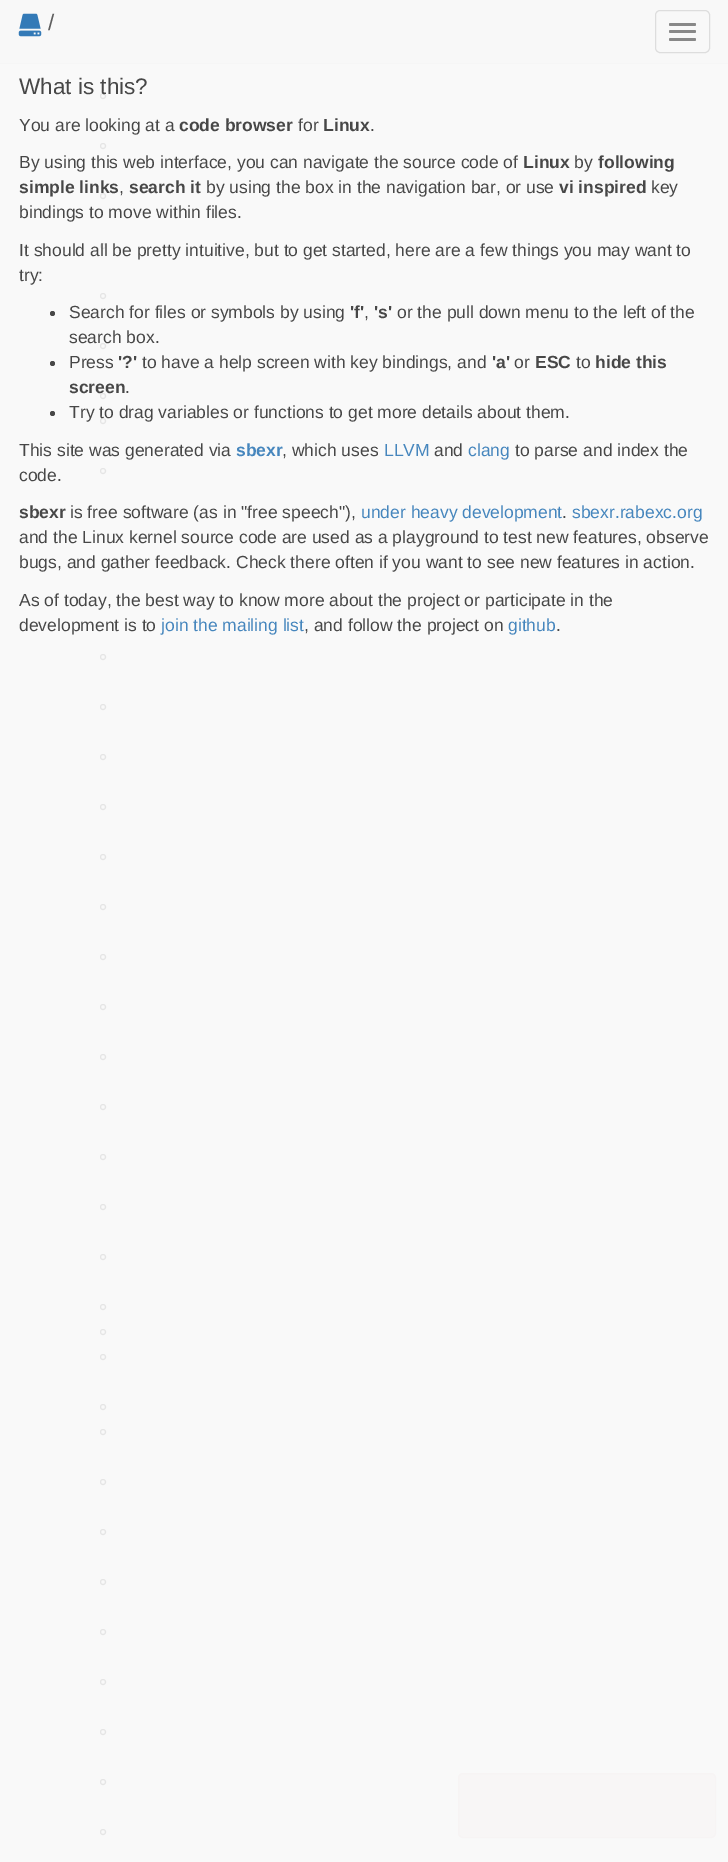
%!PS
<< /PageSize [728 1862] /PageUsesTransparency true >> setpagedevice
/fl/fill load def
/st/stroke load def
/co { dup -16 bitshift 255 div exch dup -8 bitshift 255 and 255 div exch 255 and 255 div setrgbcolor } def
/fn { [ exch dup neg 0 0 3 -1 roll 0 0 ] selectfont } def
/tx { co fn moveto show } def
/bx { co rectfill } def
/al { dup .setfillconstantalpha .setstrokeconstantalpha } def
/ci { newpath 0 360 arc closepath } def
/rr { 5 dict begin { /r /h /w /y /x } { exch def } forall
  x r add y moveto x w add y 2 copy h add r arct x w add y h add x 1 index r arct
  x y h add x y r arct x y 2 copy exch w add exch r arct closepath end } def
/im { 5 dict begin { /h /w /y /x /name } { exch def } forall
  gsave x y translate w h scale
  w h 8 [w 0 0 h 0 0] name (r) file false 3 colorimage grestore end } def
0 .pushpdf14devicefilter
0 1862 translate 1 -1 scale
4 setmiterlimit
0 0 728 1862 16#FFFFFF bx
0 0 728 63 16#F8F8F8 bx
0 63 728 1 16#E7E7E7 bx
(media/1.raw) 18 13 24 24 im
16#DDDDDD co
655.5 10.5 54 42 4.5 rr st
16#888888 co
669 23 27 3 1.5 rr fl
669 30 27 3 1.5 rr fl
669 38 27 3 1.5 rr fl
16#333333 co
103 96 2.5 ci st
103 146 2.5 ci st
103 196 2.5 ci st
103 246 2.5 ci st
103 296 2.5 ci st
103 346 2.5 ci st
103 396 2.5 ci st
103 421 2.5 ci st
103 471 2.5 ci st
103 657 2.5 ci st
103 707 2.5 ci st
103 757 2.5 ci st
103 807 2.5 ci st
103 857 2.5 ci st
103 907 2.5 ci st
103 957 2.5 ci st
103 1007 2.5 ci st
103 1057 2.5 ci st
103 1107 2.5 ci st
103 1157 2.5 ci st
103 1207 2.5 ci st
103 1257 2.5 ci st
103 1307 2.5 ci st
103 1332 2.5 ci st
103 1357 2.5 ci st
103 1407 2.5 ci st
103 1432 2.5 ci st
103 1482 2.5 ci st
103 1532 2.5 ci st
103 1582 2.5 ci st
103 1632 2.5 ci st
103 1682 2.5 ci st
103 1732 2.5 ci st
103 1782 2.5 ci st
103 1832 2.5 ci st
0.9 al
16#F2DEDE co
458 1773 258 65 5 rr fl
16#EBCCD1 co
458.5 1773.5 257 64 4.5 rr st
0 63 728 1799 16#F8F8F8 bx
1 al
16#474747 co
52.5 313.5 2.5 ci fl
52.5 363.5 2.5 ci fl
52.5 413.5 2.5 ci fl
(/) 48 30 /LiberationSans-Regular 22.5 16#5E5E5E tx
(What is this?) 19 94 /LiberationSans-Regular 22.5 16#474747 tx
(You are looking at a) 19 131 /LiberationSans-Regular 17.5 16#474747 tx
(code browser) 179 131 /LiberationSans-Bold 17.5 16#474747 tx
(for) 298 131 /LiberationSans-Regular 17.5 16#474747 tx
(Linux) 323 131 /LiberationSans-Bold 17.5 16#474747 tx
(.) 370 131 /LiberationSans-Regular 17.5 16#474747 tx
(By using this web interface, you can navigate the source code of) 19 168 /LiberationSans-Regular 17.5 16#474747 tx
(Linux) 523 168 /LiberationSans-Bold 17.5 16#474747 tx
(by) 574 168 /LiberationSans-Regular 17.5 16#474747 tx
(following) 598 168 /LiberationSans-Bold 17.5 16#474747 tx
(simple links) 19 193 /LiberationSans-Bold 17.5 16#474747 tx
(,) 119 193 /LiberationSans-Regular 17.5 16#474747 tx
(search it) 129 193 /LiberationSans-Bold 17.5 16#474747 tx
(by using the box in the navigation bar, or use) 206 193 /LiberationSans-Regular 17.5 16#474747 tx
(vi inspired) 559 193 /LiberationSans-Bold 17.5 16#474747 tx
(key) 651 193 /LiberationSans-Regular 17.5 16#474747 tx
(bindings to move within files.) 19 218 /LiberationSans-Regular 17.5 16#474747 tx
(It should all be pretty intuitive, but to get started, here are a few things you may want to) 19 256 /LiberationSans-Regular 17.5 16#474747 tx
(try:) 19 281 /LiberationSans-Regular 17.5 16#474747 tx
(Search for files or symbols by using) 69 318 /LiberationSans-Regular 17.5 16#474747 tx
('f') 350 318 /LiberationSans-Bold 17.5 16#474747 tx
('s') 374 318 /LiberationSans-Bold 17.5 16#474747 tx
(or the pull down menu to the left of the) 397 318 /LiberationSans-Regular 17.5 16#474747 tx
(,) 364 318 /LiberationSans-Regular 17.5 16#474747 tx
(search box.) 69 343 /LiberationSans-Regular 17.5 16#474747 tx
(Press) 69 368 /LiberationSans-Regular 17.5 16#474747 tx
('?') 118 368 /LiberationSans-Bold 17.5 16#474747 tx
(to have a help screen with key bindings, and) 142 368 /LiberationSans-Regular 17.5 16#474747 tx
('a') 492 368 /LiberationSans-Bold 17.5 16#474747 tx
(or) 514 368 /LiberationSans-Regular 17.5 16#474747 tx
(ESC) 535 368 /LiberationSans-Bold 17.5 16#474747 tx
(to) 576 368 /LiberationSans-Regular 17.5 16#474747 tx
(hide this) 595 368 /LiberationSans-Bold 17.5 16#474747 tx
(screen) 69 393 /LiberationSans-Bold 17.5 16#474747 tx
(.) 125 393 /LiberationSans-Regular 17.5 16#474747 tx
(Try to drag variables or functions to get more details about them.) 69 418 /LiberationSans-Regular 17.5 16#474747 tx
(This site was generated via) 19 456 /LiberationSans-Regular 17.5 16#474747 tx
(sbexr) 236 456 /LiberationSans-Bold 17.5 16#4686BD tx
(, which uses) 282 456 /LiberationSans-Regular 17.5 16#474747 tx
(LLVM) 384 456 /LiberationSans-Regular 17.5 16#4686BD tx
(and) 434 456 /LiberationSans-Regular 17.5 16#474747 tx
(clang) 468 456 /LiberationSans-Regular 17.5 16#4686BD tx
(to parse and index the) 515 456 /LiberationSans-Regular 17.5 16#474747 tx
(code.) 19 481 /LiberationSans-Regular 17.5 16#474747 tx
(sbexr) 19 518 /LiberationSans-Bold 17.5 16#474747 tx
(is free software \(as in "free speech"\),) 70 518 /LiberationSans-Regular 17.5 16#474747 tx
(under heavy development) 361 518 /LiberationSans-Regular 17.5 16#4686BD tx
(.) 562 518 /LiberationSans-Regular 17.5 16#474747 tx
(sbexr.rabexc.org) 572 518 /LiberationSans-Regular 17.5 16#4686BD tx
(and the Linux kernel source code are used as a playground to test new features, observe) 19 543 /LiberationSans-Regular 17.5 16#474747 tx
(bugs, and gather feedback. Check there often if you want to see new features in action.) 19 568 /LiberationSans-Regular 17.5 16#474747 tx
(As of today, the best way to know more about the project or participate in the) 19 606 /LiberationSans-Regular 17.5 16#474747 tx
(development is to) 19 631 /LiberationSans-Regular 17.5 16#474747 tx
(join the mailing list) 161 631 /LiberationSans-Regular 17.5 16#4686BD tx
(, and follow the project on) 304 631 /LiberationSans-Regular 17.5 16#474747 tx
(github) 508 631 /LiberationSans-Regular 17.5 16#4686BD tx
(.) 556 631 /LiberationSans-Regular 17.5 16#474747 tx
.poppdf14devicefilter showpage
